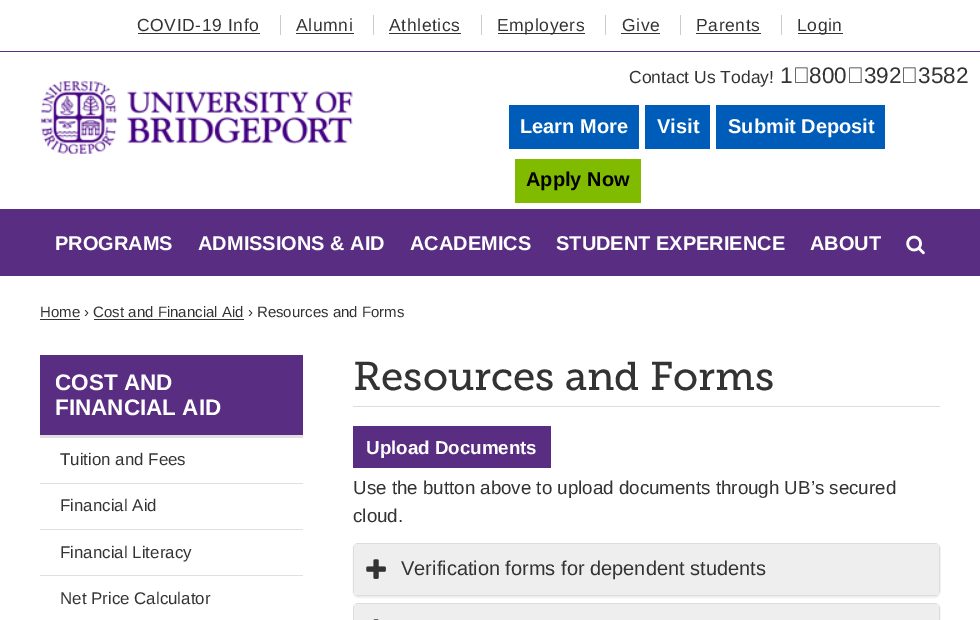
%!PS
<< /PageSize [980 620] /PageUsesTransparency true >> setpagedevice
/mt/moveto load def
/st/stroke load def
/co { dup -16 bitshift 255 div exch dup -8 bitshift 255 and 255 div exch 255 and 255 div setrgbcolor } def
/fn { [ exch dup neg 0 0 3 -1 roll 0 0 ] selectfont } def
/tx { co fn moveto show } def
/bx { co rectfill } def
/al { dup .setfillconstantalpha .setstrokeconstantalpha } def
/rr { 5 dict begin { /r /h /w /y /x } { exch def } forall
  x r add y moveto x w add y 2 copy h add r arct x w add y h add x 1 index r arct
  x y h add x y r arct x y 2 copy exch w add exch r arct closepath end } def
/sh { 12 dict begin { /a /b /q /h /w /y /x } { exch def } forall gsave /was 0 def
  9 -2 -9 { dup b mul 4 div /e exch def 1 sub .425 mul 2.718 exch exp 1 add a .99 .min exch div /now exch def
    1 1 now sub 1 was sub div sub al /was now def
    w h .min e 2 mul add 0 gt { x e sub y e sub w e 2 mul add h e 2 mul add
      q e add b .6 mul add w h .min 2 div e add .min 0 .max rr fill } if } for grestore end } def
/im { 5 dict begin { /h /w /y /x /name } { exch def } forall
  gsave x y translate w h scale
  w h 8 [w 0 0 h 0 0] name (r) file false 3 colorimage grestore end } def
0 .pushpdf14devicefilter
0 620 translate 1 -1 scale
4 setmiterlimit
0 0 980 620 16#FFFFFF bx
0 51 980 1 16#592D82 bx
138 33 122 1 16#333333 bx
280 15 1 20 16#CCCCCC bx
296 33 58 1 16#333333 bx
373 15 1 20 16#CCCCCC bx
389 33 72 1 16#333333 bx
481 15 1 20 16#CCCCCC bx
498 33 87 1 16#333333 bx
605 15 1 20 16#CCCCCC bx
621 33 39 1 16#333333 bx
680 15 1 20 16#CCCCCC bx
696 33 65 1 16#333333 bx
781 15 1 20 16#CCCCCC bx
798 33 45 1 16#333333 bx
(media/1.raw) 40 80 313 74 im
509 105 130 44 16#005CB9 bx
645 105 65 44 16#005CB9 bx
716 105 169 44 16#005CB9 bx
515 159 126 44 16#80BB00 bx
0 209 980 67 16#592D82 bx
(media/2.raw) 906 235 19 20 im
40 319 40 1 16#333333 bx
94 319 150 1 16#333333 bx
40 435 263 3 16#E0E0E0 bx
40 355 263 80 16#592D82 bx
40 483 263 1 16#E0E0E0 bx
40 529 263 1 16#E0E0E0 bx
40 575 263 1 16#E0E0E0 bx
353 406 587 1 16#DDDDDD bx
353 426 198 42 16#592D82 bx
16#000000 co
353 544 587 54 5 .5 .05 sh
16#DDDDDD co
353.5 543.5 586 52 4.5 rr st
354 544 585 51 16#EEEEEE bx
(media/3.raw) 366 559 20 20 im
16#DDDDDD co
353.5 603.5 586 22 4.5 rr st
354 604 585 16 16#EEEEEE bx
(media/4.raw) 373 619 6 1 im
/LiberationSans-Regular 17.5 fn
16#333333 co
137 31 mt .6 0 (COVID-19 Info) ashow
296 31 mt .6 0 (Alumni) ashow
389 31 mt .6 0 (Athletics) ashow
497 31 mt .6 0 (Employers) ashow
622 31 mt .6 0 (Give) ashow
696 31 mt .6 0 (Parents) ashow
797 31 mt .6 0 (Login) ashow
(Contact Us Today!) 629 83 /LiberationSans-Regular 17.5 16#333333 tx
(1‑800‑392‑3582) 780 83 /LiberationSans-Regular 22.5 16#333333 tx
(Learn More) 520 133 /LiberationSans-Bold 20 16#FFFFFF tx
(Visit) 657 133 /LiberationSans-Bold 20 16#FFFFFF tx
(Submit Deposit) 728 133 /LiberationSans-Bold 20 16#FFFFFF tx
(Apply Now) 526 186 /LiberationSans-Bold 20 16#000000 tx
(PROGRAMS) 55 250 /LiberationSans-Bold 20 16#FFFFFF tx
(ADMISSIONS & AID) 198 250 /LiberationSans-Bold 20 16#FFFFFF tx
(ACADEMICS) 410 250 /LiberationSans-Bold 20 16#FFFFFF tx
(STUDENT EXPERIENCE) 556 250 /LiberationSans-Bold 20 16#FFFFFF tx
(ABOUT) 810 250 /LiberationSans-Bold 20 16#FFFFFF tx
(Home › Cost and Financial Aid › Resources and Forms) 40 317 /LiberationSans-Regular 15 16#333333 tx
(COST AND) 55 390 /LiberationSans-Bold 22.5 16#FFFFFF tx
(FINANCIAL AID) 55 415 /LiberationSans-Bold 22.5 16#FFFFFF tx
(Tuition and Fees) 60 465 /LiberationSans-Regular 16.9 16#333333 tx
(Financial Aid) 60 511 /LiberationSans-Regular 16.9 16#333333 tx
(Financial Literacy) 60 558 /LiberationSans-Regular 16.9 16#333333 tx
(Net Price Calculator) 60 604 /LiberationSans-Regular 16.9 16#333333 tx
(Resources and Forms) 353 390 /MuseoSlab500-Regular 40 16#333333 tx
(Upload Documents) 366 454 /LiberationSans-Bold 18.75 16#FFFFFF tx
(Use the button above to upload documents through UB’s secured) 353 494 /LiberationSans-Regular 18.75 16#333333 tx
(cloud.) 353 522 /LiberationSans-Regular 18.75 16#333333 tx
(Verification forms for dependent students) 401 575 /LiberationSans-Regular 20 16#333333 tx
.poppdf14devicefilter showpage
